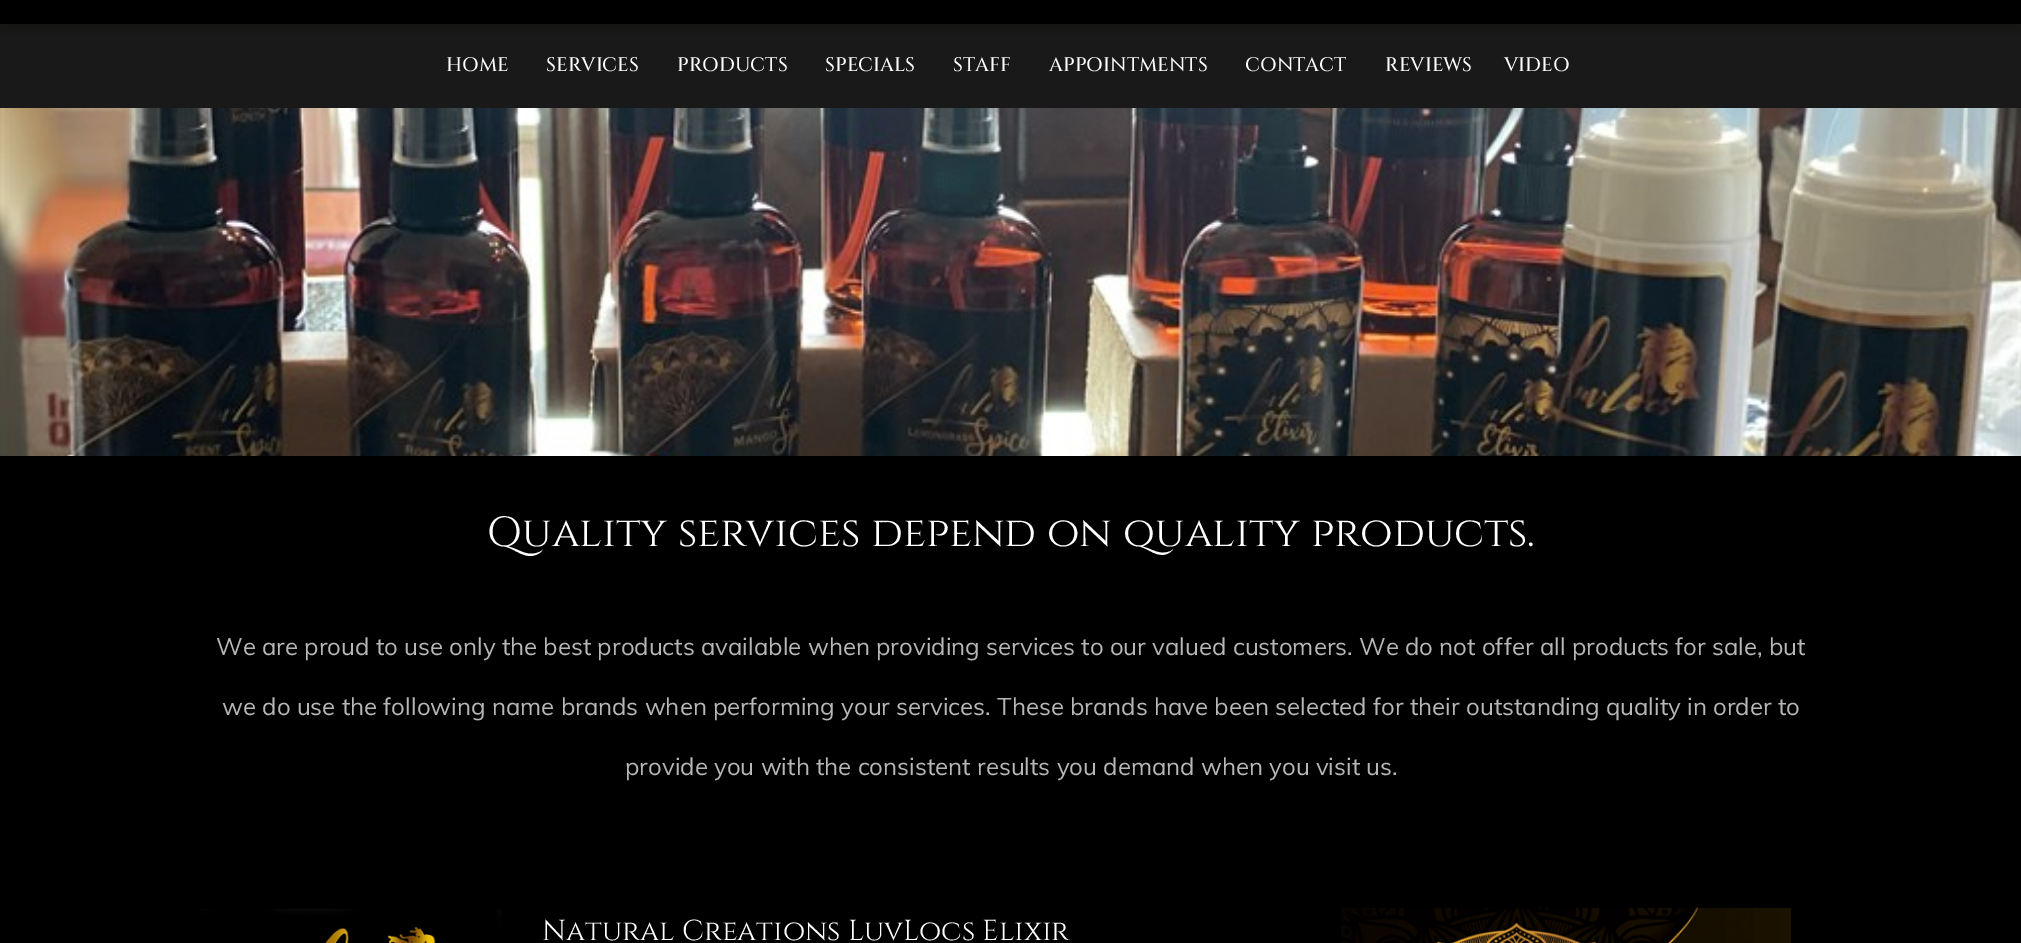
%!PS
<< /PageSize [2021 943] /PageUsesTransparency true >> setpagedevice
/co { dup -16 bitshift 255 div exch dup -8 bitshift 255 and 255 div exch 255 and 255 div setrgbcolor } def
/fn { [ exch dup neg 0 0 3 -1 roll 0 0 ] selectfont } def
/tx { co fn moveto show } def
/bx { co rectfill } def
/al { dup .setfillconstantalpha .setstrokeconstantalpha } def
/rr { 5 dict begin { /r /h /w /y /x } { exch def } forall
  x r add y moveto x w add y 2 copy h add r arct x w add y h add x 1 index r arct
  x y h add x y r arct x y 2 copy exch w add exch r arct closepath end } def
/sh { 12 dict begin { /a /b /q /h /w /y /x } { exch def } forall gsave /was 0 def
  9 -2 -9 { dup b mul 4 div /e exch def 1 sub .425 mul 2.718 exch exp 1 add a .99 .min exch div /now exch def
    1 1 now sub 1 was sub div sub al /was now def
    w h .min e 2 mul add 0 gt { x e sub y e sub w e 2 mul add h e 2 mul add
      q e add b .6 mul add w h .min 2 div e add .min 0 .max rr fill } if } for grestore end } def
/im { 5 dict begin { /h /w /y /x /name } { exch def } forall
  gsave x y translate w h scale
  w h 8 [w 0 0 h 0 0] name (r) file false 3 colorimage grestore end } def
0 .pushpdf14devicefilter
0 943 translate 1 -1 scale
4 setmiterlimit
0 0 2021 943 16#FFFFFF bx
16#4C493D co
0 -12 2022 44 0 4 .2 sh
0 0 2021 24 16#000000 bx
0.9 al
0 24 2021 84 16#000000 bx
1 al
(media/1.raw) 0 108 2021 348 im
0 456 2021 487 16#000000 bx
(media/2.raw) 201 909 300 34 im
(media/3.raw) 1341 907 450 36 im
(HOME) 446 71 /Cinzel-Medium 19.5 16#FFFFFF tx
(SERVICES) 546 71 /Cinzel-Medium 19.5 16#FFFFFF tx
(PRODUCTS) 677 71 /Cinzel-Medium 19.5 16#FFFFFF tx
(SPECIALS) 825 71 /Cinzel-Medium 19.5 16#FFFFFF tx
(STAFF) 953 71 /Cinzel-Medium 19.5 16#FFFFFF tx
(APPOINTMENTS) 1049 71 /Cinzel-Medium 19.5 16#FFFFFF tx
(CONTACT) 1245 71 /Cinzel-Medium 19.5 16#FFFFFF tx
(REVIEWS) 1385 71 /Cinzel-Medium 19.5 16#FFFFFF tx
(VIDEO) 1504 71 /Cinzel-Medium 19.5 16#FFFFFF tx
(Quality services depend on quality products.) 487 546 /Cinzel-Regular 42 16#FFFFFF tx
(We are proud to use only the best products available when providing services to our valued customers. We do not offer all products for sale, but) 216 655 /Muli-Regular 24 16#B7B7B7 tx
(we do use the following name brands when performing your services. These brands have been selected for their outstanding quality in order to) 222 715 /Muli-Regular 24 16#B7B7B7 tx
(provide you with the consistent results you demand when you visit us.) 625 775 /Muli-Regular 24 16#B7B7B7 tx
(Natural Creations LuvLocs Elixir) 542 940 /Cinzel-Regular 28.75 16#FFFFFF tx
.poppdf14devicefilter showpage
